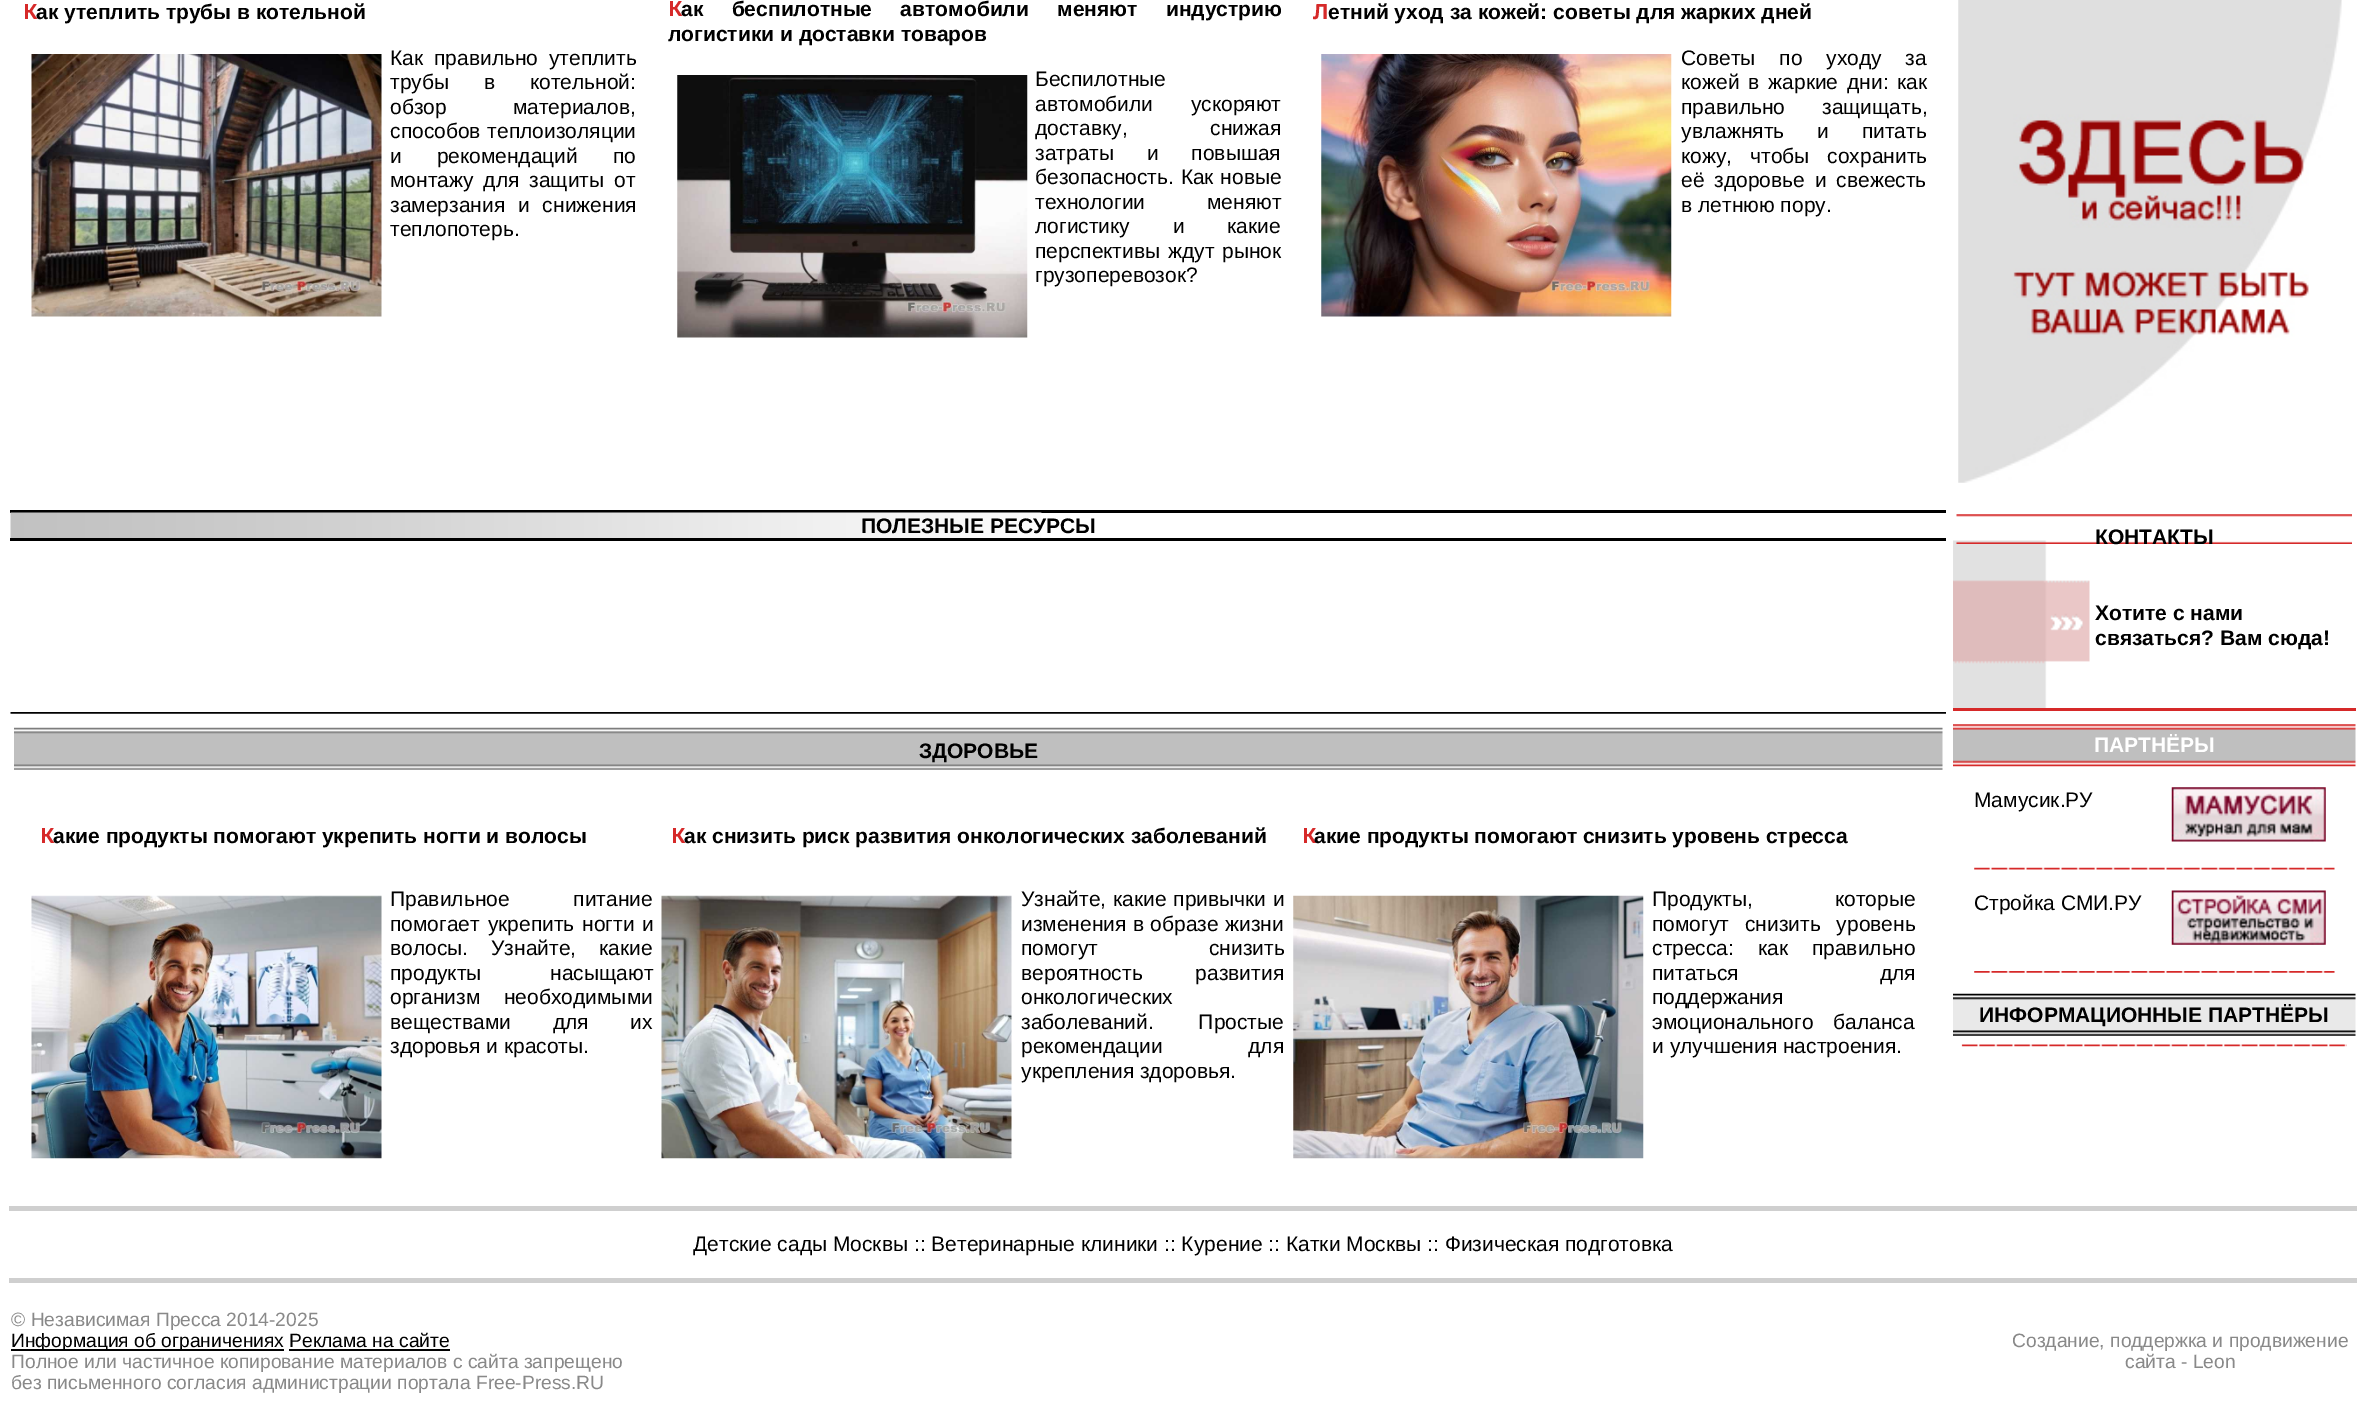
%!PS
<< /PageSize [2365 1402] >> setpagedevice
/mt/moveto load def
/co { dup -16 bitshift 255 div exch dup -8 bitshift 255 and 255 div exch 255 and 255 div setrgbcolor } def
/fn { [ exch dup neg 0 0 3 -1 roll 0 0 ] selectfont } def
/tx { co fn moveto show } def
/bx { co rectfill } def
/im { 5 dict begin { /h /w /y /x /name } { exch def } forall
  gsave x y translate w h scale
  w h 8 [w 0 0 h 0 0] name (r) file false 3 colorimage grestore end } def
0 1402 translate 1 -1 scale
4 setmiterlimit
0 0 2365 1402 16#FFFFFF bx
(media/1.raw) 31 54 351 263 im
(media/2.raw) 677 75 351 263 im
(media/3.raw) 1321 54 351 263 im
(media/4.raw) 1958 0 384 483 im
10 510 1936 3 16#000000 bx
(media/5.raw) 10 512 1032 26 im
10 538 1936 3 16#000000 bx
(media/6.raw) 10 712 1936 2 im
(media/7.raw) 1953 540 137 168 im
(media/8.raw) 1956 514 396 30 im
1953 708 403 3 16#D62929 bx
(media/9.raw) 14 727 1929 43 im
(media/10.raw) 31 895 351 264 im
(media/11.raw) 661 895 351 264 im
(media/12.raw) 1293 895 351 264 im
(media/13.raw) 1953 724 403 43 im
(media/14.raw) 2171 787 155 55 im
(media/15.raw) 1974 867 361 3 im
(media/16.raw) 2171 890 155 55 im
(media/17.raw) 1974 971 361 2 im
(media/18.raw) 1953 993 403 43 im
(media/19.raw) 1961 1044 386 3 im
9 1206 2348 5 16#CFCFCF bx
9 1278 2348 5 16#CFCFCF bx
11 1349 273 2 16#000000 bx
289 1349 161 2 16#000000 bx
(К) 23 19 /NotoSans-Bold 21 16#D62929 tx
(ак утеплить трубы в котельной) 36 19 /LiberationSans-Bold 21 16#000000 tx
/LiberationSans-Regular 21 fn
390 65 mt 5 0 32 (Как правильно утеплить) widthshow
390 89 mt 29 0 32 (трубы в котельной:) widthshow
390 114 mt 60 0 32 (обзор материалов,) widthshow
390 138 mt 1 0 32 (способов теплоизоляции) widthshow
390 163 mt 29 0 32 (и рекомендаций по) widthshow
390 187 mt 4 0 32 (монтажу для защиты от) widthshow
390 212 mt 7 0 32 (замерзания и снижения) widthshow
(теплопотерь.) 390 236 /LiberationSans-Regular 21 16#000000 tx
(К) 668 16 /NotoSans-Bold 21 16#D62929 tx
/LiberationSans-Bold 21 fn
16#000000 co
681 16 mt 22.5 0 32 (ак беспилотные автомобили меняют индустрию) widthshow
(логистики и доставки товаров) 668 41 /LiberationSans-Bold 21 16#000000 tx
(Беспилотные) 1035 86 /LiberationSans-Regular 21 16#000000 tx
1035 111 mt 32 0 32 (автомобили ускоряют) widthshow
1035 135 mt 77 0 32 (доставку, снижая) widthshow
1035 160 mt 27 0 32 (затраты и повышая) widthshow
1035 184 mt 1 0 32 (безопасность. Как новые) widthshow
1035 209 mt 56 0 32 (технологии меняют) widthshow
1035 233 mt 37 0 32 (логистику и какие) widthshow
1035 258 mt 2 0 32 (перспективы ждут рынок) widthshow
(грузоперевозок?) 1035 282 /LiberationSans-Regular 21 16#000000 tx
(Л) 1313 19 /NotoSans-Bold 21 16#D62929 tx
(етний уход за кожей: советы для жарких дней) 1328 19 /LiberationSans-Bold 21 16#000000 tx
/LiberationSans-Regular 21 fn
1681 65 mt 18 0 32 (Советы по уходу за) widthshow
1681 89 mt 3 0 32 (кожей в жаркие дни: как) widthshow
1681 114 mt 31 0 32 (правильно защищать,) widthshow
1681 138 mt 27 0 32 (увлажнять и питать) widthshow
1681 163 mt 12 0 32 (кожу, чтобы сохранить) widthshow
1681 187 mt 4 0 32 (её здоровье и свежесть) widthshow
(в летнюю пору.) 1681 212 /LiberationSans-Regular 21 16#000000 tx
(ПОЛЕЗНЫЕ РЕСУРСЫ) 861 533 /LiberationSans-Bold 21 16#000000 tx
(КОНТАКТЫ) 2095 544 /LiberationSans-Bold 21 16#000000 tx
(Хотите с нами) 2095 620 /LiberationSans-Bold 21 16#000000 tx
(связаться? Вам сюда!) 2095 645 /LiberationSans-Bold 21 16#000000 tx
(ЗДОРОВЬЕ) 919 758 /LiberationSans-Bold 21 16#000000 tx
(К) 40 843 /NotoSans-Bold 21 16#D62929 tx
(акие продукты помогают укрепить ногти и волосы) 53 843 /LiberationSans-Bold 21 16#000000 tx
/LiberationSans-Regular 21 fn
390 906 mt 58 0 32 (Правильное питание) widthshow
390 931 mt 2 0 32 (помогает укрепить ногти и) widthshow
390 955 mt 17 0 32 (волосы. Узнайте, какие) widthshow
390 980 mt 63 0 32 (продукты насыщают) widthshow
390 1004 mt 18 0 32 (организм необходимыми) widthshow
390 1029 mt 36 0 32 (веществами для их) widthshow
(здоровья и красоты.) 390 1053 /LiberationSans-Regular 21 16#000000 tx
(К) 671 843 /NotoSans-Bold 21 16#D62929 tx
(ак снизить риск развития онкологических заболеваний) 684 843 /LiberationSans-Bold 21 16#000000 tx
/LiberationSans-Regular 21 fn
1021 906 mt 1 0 32 (Узнайте, какие привычки и) widthshow
1021 931 mt .5 0 32 (изменения в образе жизни) widthshow
1021 955 mt 105 0 32 (помогут снизить) widthshow
1021 980 mt 47 0 32 (вероятность развития) widthshow
(онкологических) 1021 1004 /LiberationSans-Regular 21 16#000000 tx
1021 1029 mt 39 0 32 (заболеваний. Простые) widthshow
1021 1053 mt 80 0 32 (рекомендации для) widthshow
(укрепления здоровья.) 1021 1078 /LiberationSans-Regular 21 16#000000 tx
(К) 1302 843 /NotoSans-Bold 21 16#D62929 tx
(акие продукты помогают снизить уровень стресса) 1314 843 /LiberationSans-Bold 21 16#000000 tx
/LiberationSans-Regular 21 fn
1652 906 mt 76 0 32 (Продукты, которые) widthshow
1652 931 mt 10 0 32 (помогут снизить уровень) widthshow
1652 955 mt 18 0 32 (стресса: как правильно) widthshow
1652 980 mt 135 0 32 (питаться для) widthshow
(поддержания) 1652 1004 /LiberationSans-Regular 21 16#000000 tx
1652 1029 mt 14 0 32 (эмоционального баланса) widthshow
(и улучшения настроения.) 1652 1053 /LiberationSans-Regular 21 16#000000 tx
(ПАРТНЁРЫ) 2094 752 /LiberationSans-Bold 21 16#FFFFFF tx
(Мамусик.РУ) 1974 807 /LiberationSans-Regular 21 16#000000 tx
(Стройка СМИ.РУ) 1974 910 /LiberationSans-Regular 21 16#000000 tx
(ИНФОРМАЦИОННЫЕ ПАРТНЁРЫ) 1979 1022 /LiberationSans-Bold 21 16#000000 tx
(Детские сады Москвы :: Ветеринарные клиники :: Курение :: Катки Москвы :: Физическая подготовка) 693 1251 /LiberationSans-Regular 21 16#000000 tx
(© Независимая Пресса 2014-2025) 11 1326 /LiberationSans-Regular 19.25 16#898989 tx
(Информация об ограничениях Реклама на сайте) 11 1347 /LiberationSans-Regular 19.25 16#000000 tx
(Полное или частичное копирование материалов с сайта запрещено) 11 1368 /LiberationSans-Regular 19.25 16#898989 tx
(без письменного согласия администрации портала Free-Press.RU) 11 1389 /LiberationSans-Regular 19.25 16#898989 tx
(Создание, поддержка и продвижение) 2012 1347 /LiberationSans-Regular 19.25 16#898989 tx
(сайта - Leon) 2125 1368 /LiberationSans-Regular 19.25 16#898989 tx
showpage
